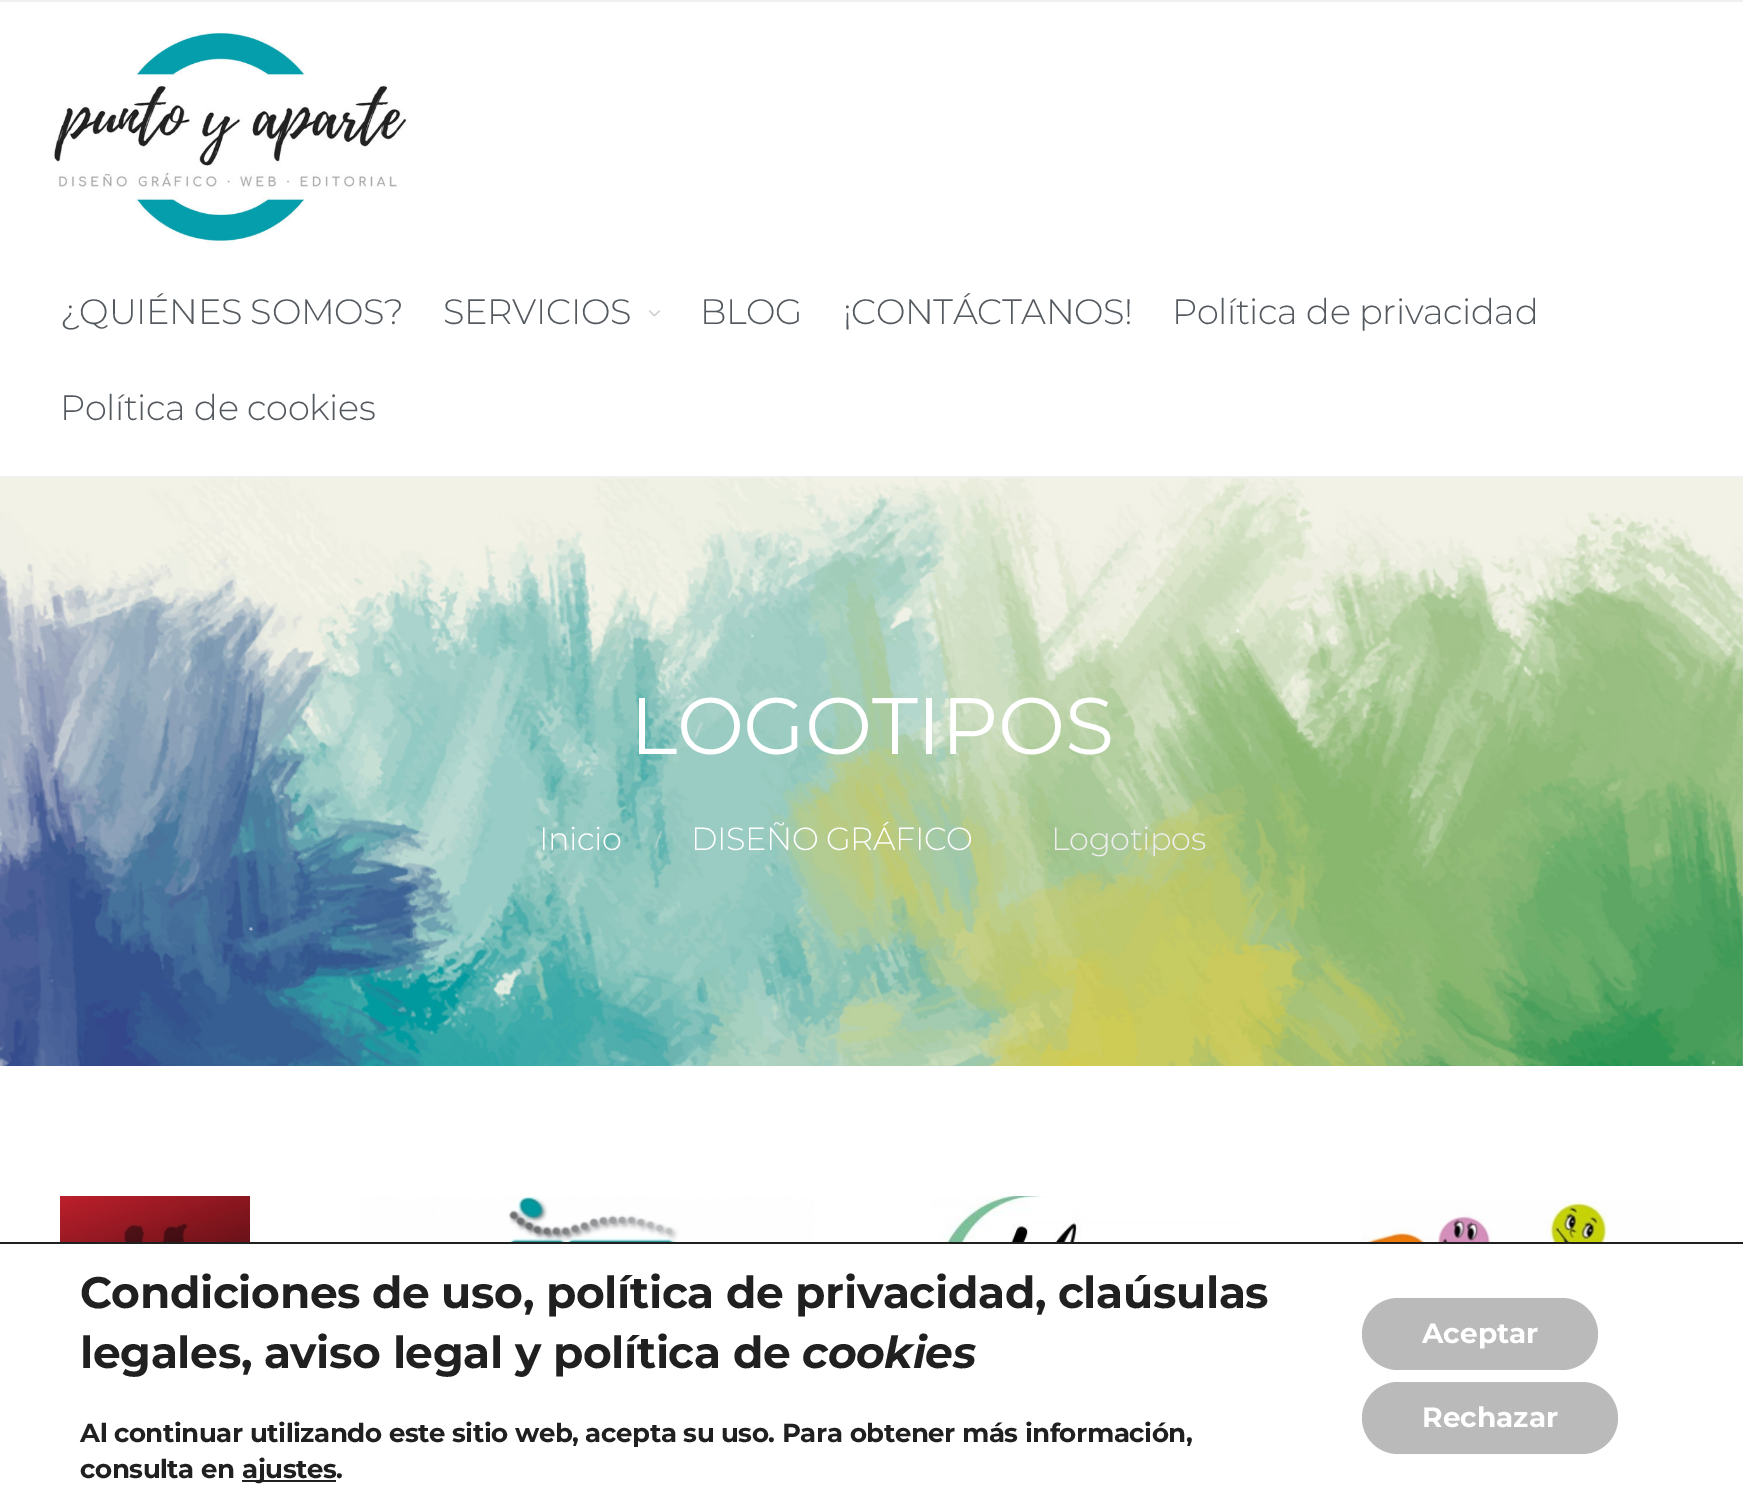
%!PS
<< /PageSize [1743 1505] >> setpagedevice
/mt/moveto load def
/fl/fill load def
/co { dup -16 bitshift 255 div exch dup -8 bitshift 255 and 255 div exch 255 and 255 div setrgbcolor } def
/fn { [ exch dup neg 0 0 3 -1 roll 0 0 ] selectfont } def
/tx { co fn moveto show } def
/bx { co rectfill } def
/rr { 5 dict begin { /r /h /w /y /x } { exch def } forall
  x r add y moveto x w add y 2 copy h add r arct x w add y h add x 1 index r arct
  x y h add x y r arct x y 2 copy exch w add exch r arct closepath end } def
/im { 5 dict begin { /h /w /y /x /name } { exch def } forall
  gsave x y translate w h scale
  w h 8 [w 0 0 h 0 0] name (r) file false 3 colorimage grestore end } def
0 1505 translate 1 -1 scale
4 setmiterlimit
0 0 1743 1505 16#F0F0F0 bx
0 2 1743 474 16#FFFFFF bx
(media/1.raw) 54 32 354 212 im
(media/2.raw) 649 310 11 7 im
(media/3.raw) 0 478 1743 588 im
0 1066 1743 176 16#FFFFFF bx
(media/4.raw) 60 1196 190 46 im
(media/5.raw) 360 1196 454 46 im
(media/6.raw) 931 1196 310 46 im
(media/7.raw) 1361 1201 318 41 im
0 1244 1743 261 16#FFFFFF bx
0 1242 1743 2 16#202020 bx
242 1480 94 2 16#202020 bx
16#BABABA co
1362 1298 236 72 36 rr fl
1362 1382 256 72 36 rr fl
/Montserrat-Light 35.25 fn
16#54595F co
60 324 mt -.4 0 (¿QUIÉNES SOMOS?) ashow
443 324 mt -.4 0 (SERVICIOS) ashow
700 324 mt -.4 0 (BLOG) ashow
843 324 mt -.4 0 (¡CONTÁCTANOS!) ashow
1172 324 mt -.4 0 (Política de privacidad) ashow
60 420 mt -.4 0 (Política de cookies) ashow
/Montserrat-Regular 80 fn
16#FFFFFF co
630 754 mt -.4 0 (LOGOTIPOS) ashow
/Montserrat-Light 32 fn
539 850 mt -.4 0 (Inicio) ashow
/LiberationSerif-Bold 24 fn
16#ACCECB co
655 847 mt -.4 0 (/) ashow
/Montserrat-Light 32 fn
16#FFFFFF co
691 850 mt -.4 0 (DISEÑO GRÁFICO) ashow
16#EEEEEE co
1051 850 mt -.4 0 (Logotipos) ashow
/Montserrat-Bold 44 fn
16#202020 co
80 1308 mt -.4 0 (Condiciones de uso, política de privacidad, claúsulas) ashow
80 1368 mt -.4 0 (legales, aviso legal y política de) ashow
/Montserrat-BoldItalic 44 fn
802 1368 mt -.4 0 (cookies) ashow
/Montserrat-Bold 26 fn
80 1442 mt -.4 0 (Al continuar utilizando este sitio web, acepta su uso. Para obtener más información,) ashow
80 1478 mt -.4 0 (consulta en) ashow
242 1478 mt -.4 0 (ajustes.) ashow
(Aceptar) 1422 1343 /Montserrat-Bold 28 16#FFFFFF tx
(Rechazar) 1422 1427 /Montserrat-Bold 28 16#FFFFFF tx
showpage
